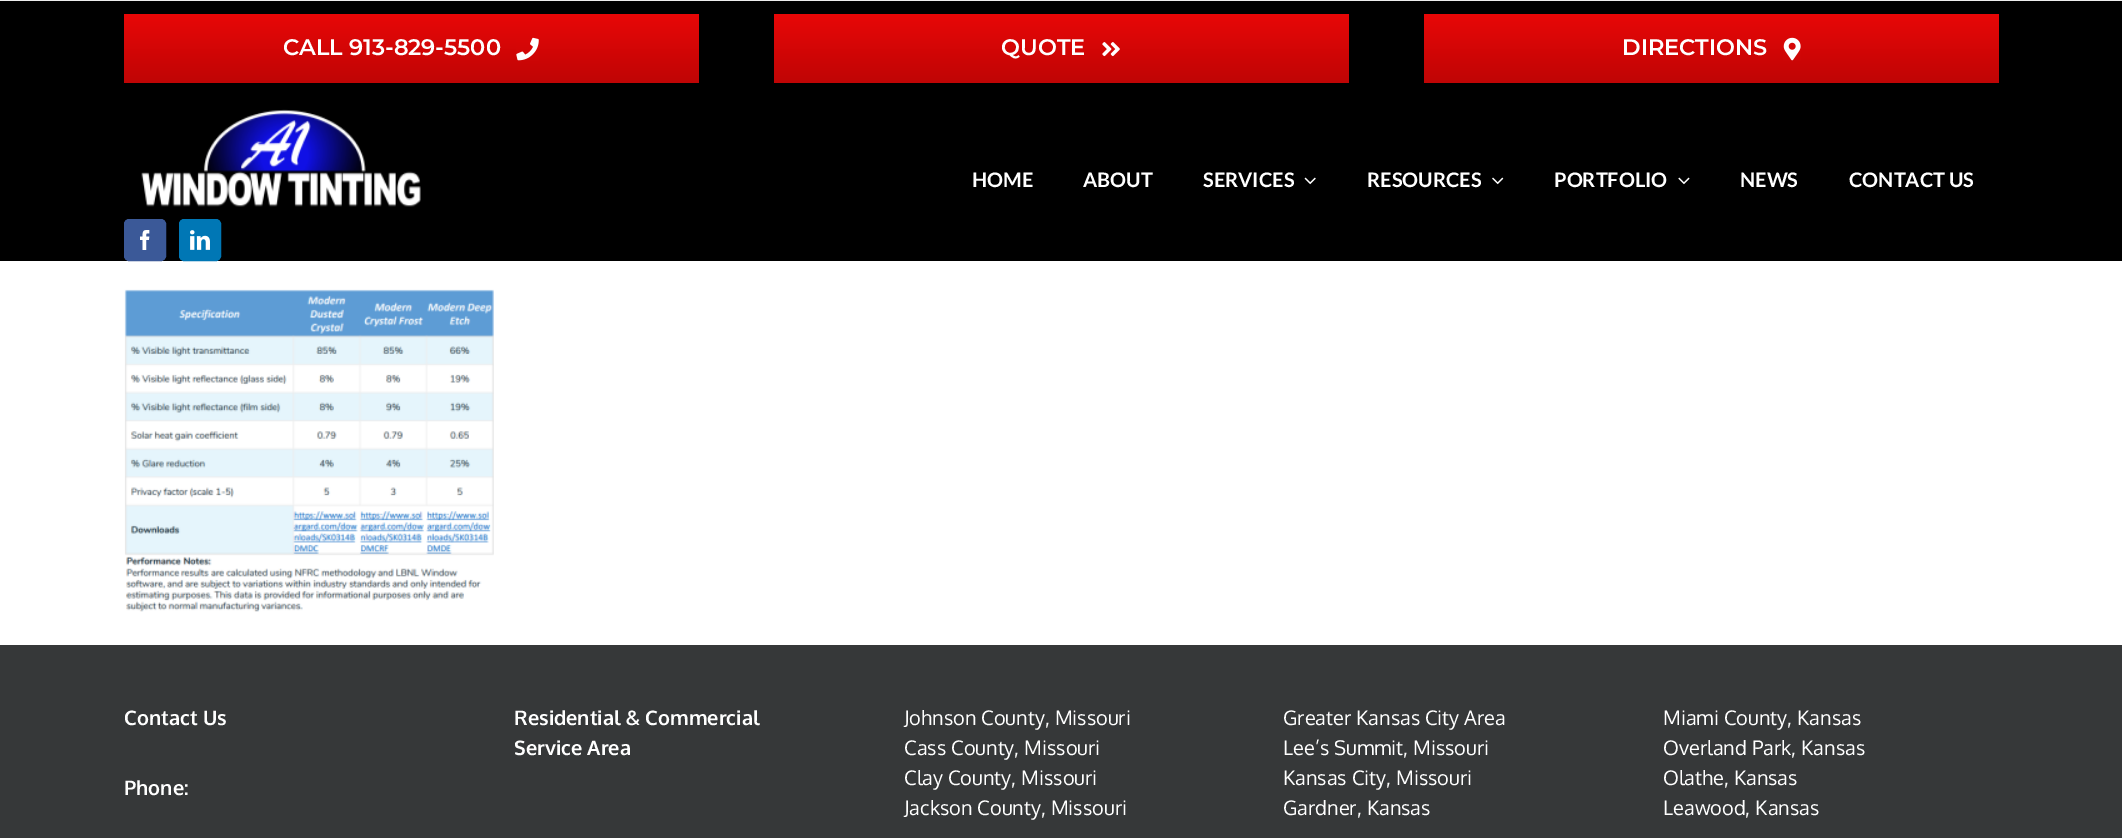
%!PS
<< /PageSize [2122 838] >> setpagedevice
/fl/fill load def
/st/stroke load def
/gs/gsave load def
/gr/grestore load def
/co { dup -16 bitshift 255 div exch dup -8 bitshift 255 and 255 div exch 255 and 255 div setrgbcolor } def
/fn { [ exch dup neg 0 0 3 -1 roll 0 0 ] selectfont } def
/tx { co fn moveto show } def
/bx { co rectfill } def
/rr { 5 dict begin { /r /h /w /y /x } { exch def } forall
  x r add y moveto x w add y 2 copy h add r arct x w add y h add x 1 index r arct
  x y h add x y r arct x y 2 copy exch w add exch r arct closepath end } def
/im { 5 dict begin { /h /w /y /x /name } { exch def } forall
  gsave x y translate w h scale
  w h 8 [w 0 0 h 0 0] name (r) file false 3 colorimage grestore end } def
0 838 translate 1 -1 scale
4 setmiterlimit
0 0 2122 838 16#FFFFFF bx
0 1 2122 260 16#000000 bx
0 0 2122 1 16#EDEDED bx
gs 124 14 575 69 2.5 rr clip newpath
<< /ShadingType 2 /ColorSpace /DeviceRGB /Coords [411 14 411 83] /Extend [true true] /Function << /FunctionType 2 /Domain [0 1] /C0 [.91 .027 .027] /C1 [.749 .02 .02] /N 1 >> >> shfill gr
(media/1.raw) 516 37 23 24 im
gs 774 14 575 69 2.5 rr clip newpath
<< /ShadingType 2 /ColorSpace /DeviceRGB /Coords [1061 14 1061 83] /Extend [true true] /Function << /FunctionType 2 /Domain [0 1] /C0 [.91 .027 .027] /C1 [.749 .02 .02] /N 1 >> >> shfill gr
(media/2.raw) 1102 42 18 15 im
gs 1424 14 575 69 2.5 rr clip newpath
<< /ShadingType 2 /ColorSpace /DeviceRGB /Coords [1711 14 1711 83] /Extend [true true] /Function << /FunctionType 2 /Domain [0 1] /C0 [.91 .027 .027] /C1 [.749 .02 .02] /N 1 >> >> shfill gr
(media/3.raw) 1783 37 18 24 im
(media/4.raw) 141 109 280 98 im
16#3B5998 co
124.5 219.5 41 41 4.5 rr gs fl gr
st
(media/5.raw) 140 230 10 20 im
16#0077B5 co
179.5 219.5 41 41 4.5 rr gs fl gr
st
(media/6.raw) 190 230 20 20 im
(media/7.raw) 1304 177 12 8 im
(media/8.raw) 1492 177 12 8 im
(media/9.raw) 1678 177 12 8 im
(media/10.raw) 124 289 370 323 im
0 645 2122 193 16#363839 bx
(CALL 913-829-5500) 283 55 /Montserrat-Thin 22.5 16#FFFFFF tx
(QUOTE) 1001 55 /Montserrat-Thin 22.5 16#FFFFFF tx
(DIRECTIONS) 1622 55 /Montserrat-Thin 22.5 16#FFFFFF tx
(HOME) 972 187 /Lato-Bold 20 16#FFFFFF tx
(ABOUT) 1083 187 /Lato-Bold 20 16#FFFFFF tx
(SERVICES) 1203 187 /Lato-Bold 20 16#FFFFFF tx
(RESOURCES) 1367 187 /Lato-Bold 20 16#FFFFFF tx
(PORTFOLIO) 1554 187 /Lato-Bold 20 16#FFFFFF tx
(NEWS) 1740 187 /Lato-Bold 20 16#FFFFFF tx
(CONTACT US) 1849 187 /Lato-Bold 20 16#FFFFFF tx
(Contact Us) 124 725 /Oxygen-Bold 20 16#FFFFFF tx
(Phone:) 124 795 /Oxygen-Bold 20 16#FFFFFF tx
(Residential & Commercial) 514 725 /Oxygen-Bold 20 16#FFFFFF tx
(Service Area) 514 755 /Oxygen-Bold 20 16#FFFFFF tx
(Johnson County, Missouri) 904 725 /Oxygen-Regular 20 16#FFFFFF tx
(Cass County, Missouri) 904 755 /Oxygen-Regular 20 16#FFFFFF tx
(Clay County, Missouri) 904 785 /Oxygen-Regular 20 16#FFFFFF tx
(Jackson County, Missouri) 904 815 /Oxygen-Regular 20 16#FFFFFF tx
(Greater Kansas City Area) 1283 725 /Oxygen-Regular 20 16#FFFFFF tx
(Lee’s Summit, Missouri) 1283 755 /Oxygen-Regular 20 16#FFFFFF tx
(Kansas City, Missouri) 1283 785 /Oxygen-Regular 20 16#FFFFFF tx
(Gardner, Kansas) 1283 815 /Oxygen-Regular 20 16#FFFFFF tx
(Miami County, Kansas) 1663 725 /Oxygen-Regular 20 16#FFFFFF tx
(Overland Park, Kansas) 1663 755 /Oxygen-Regular 20 16#FFFFFF tx
(Olathe, Kansas) 1663 785 /Oxygen-Regular 20 16#FFFFFF tx
(Leawood, Kansas) 1663 815 /Oxygen-Regular 20 16#FFFFFF tx
showpage
